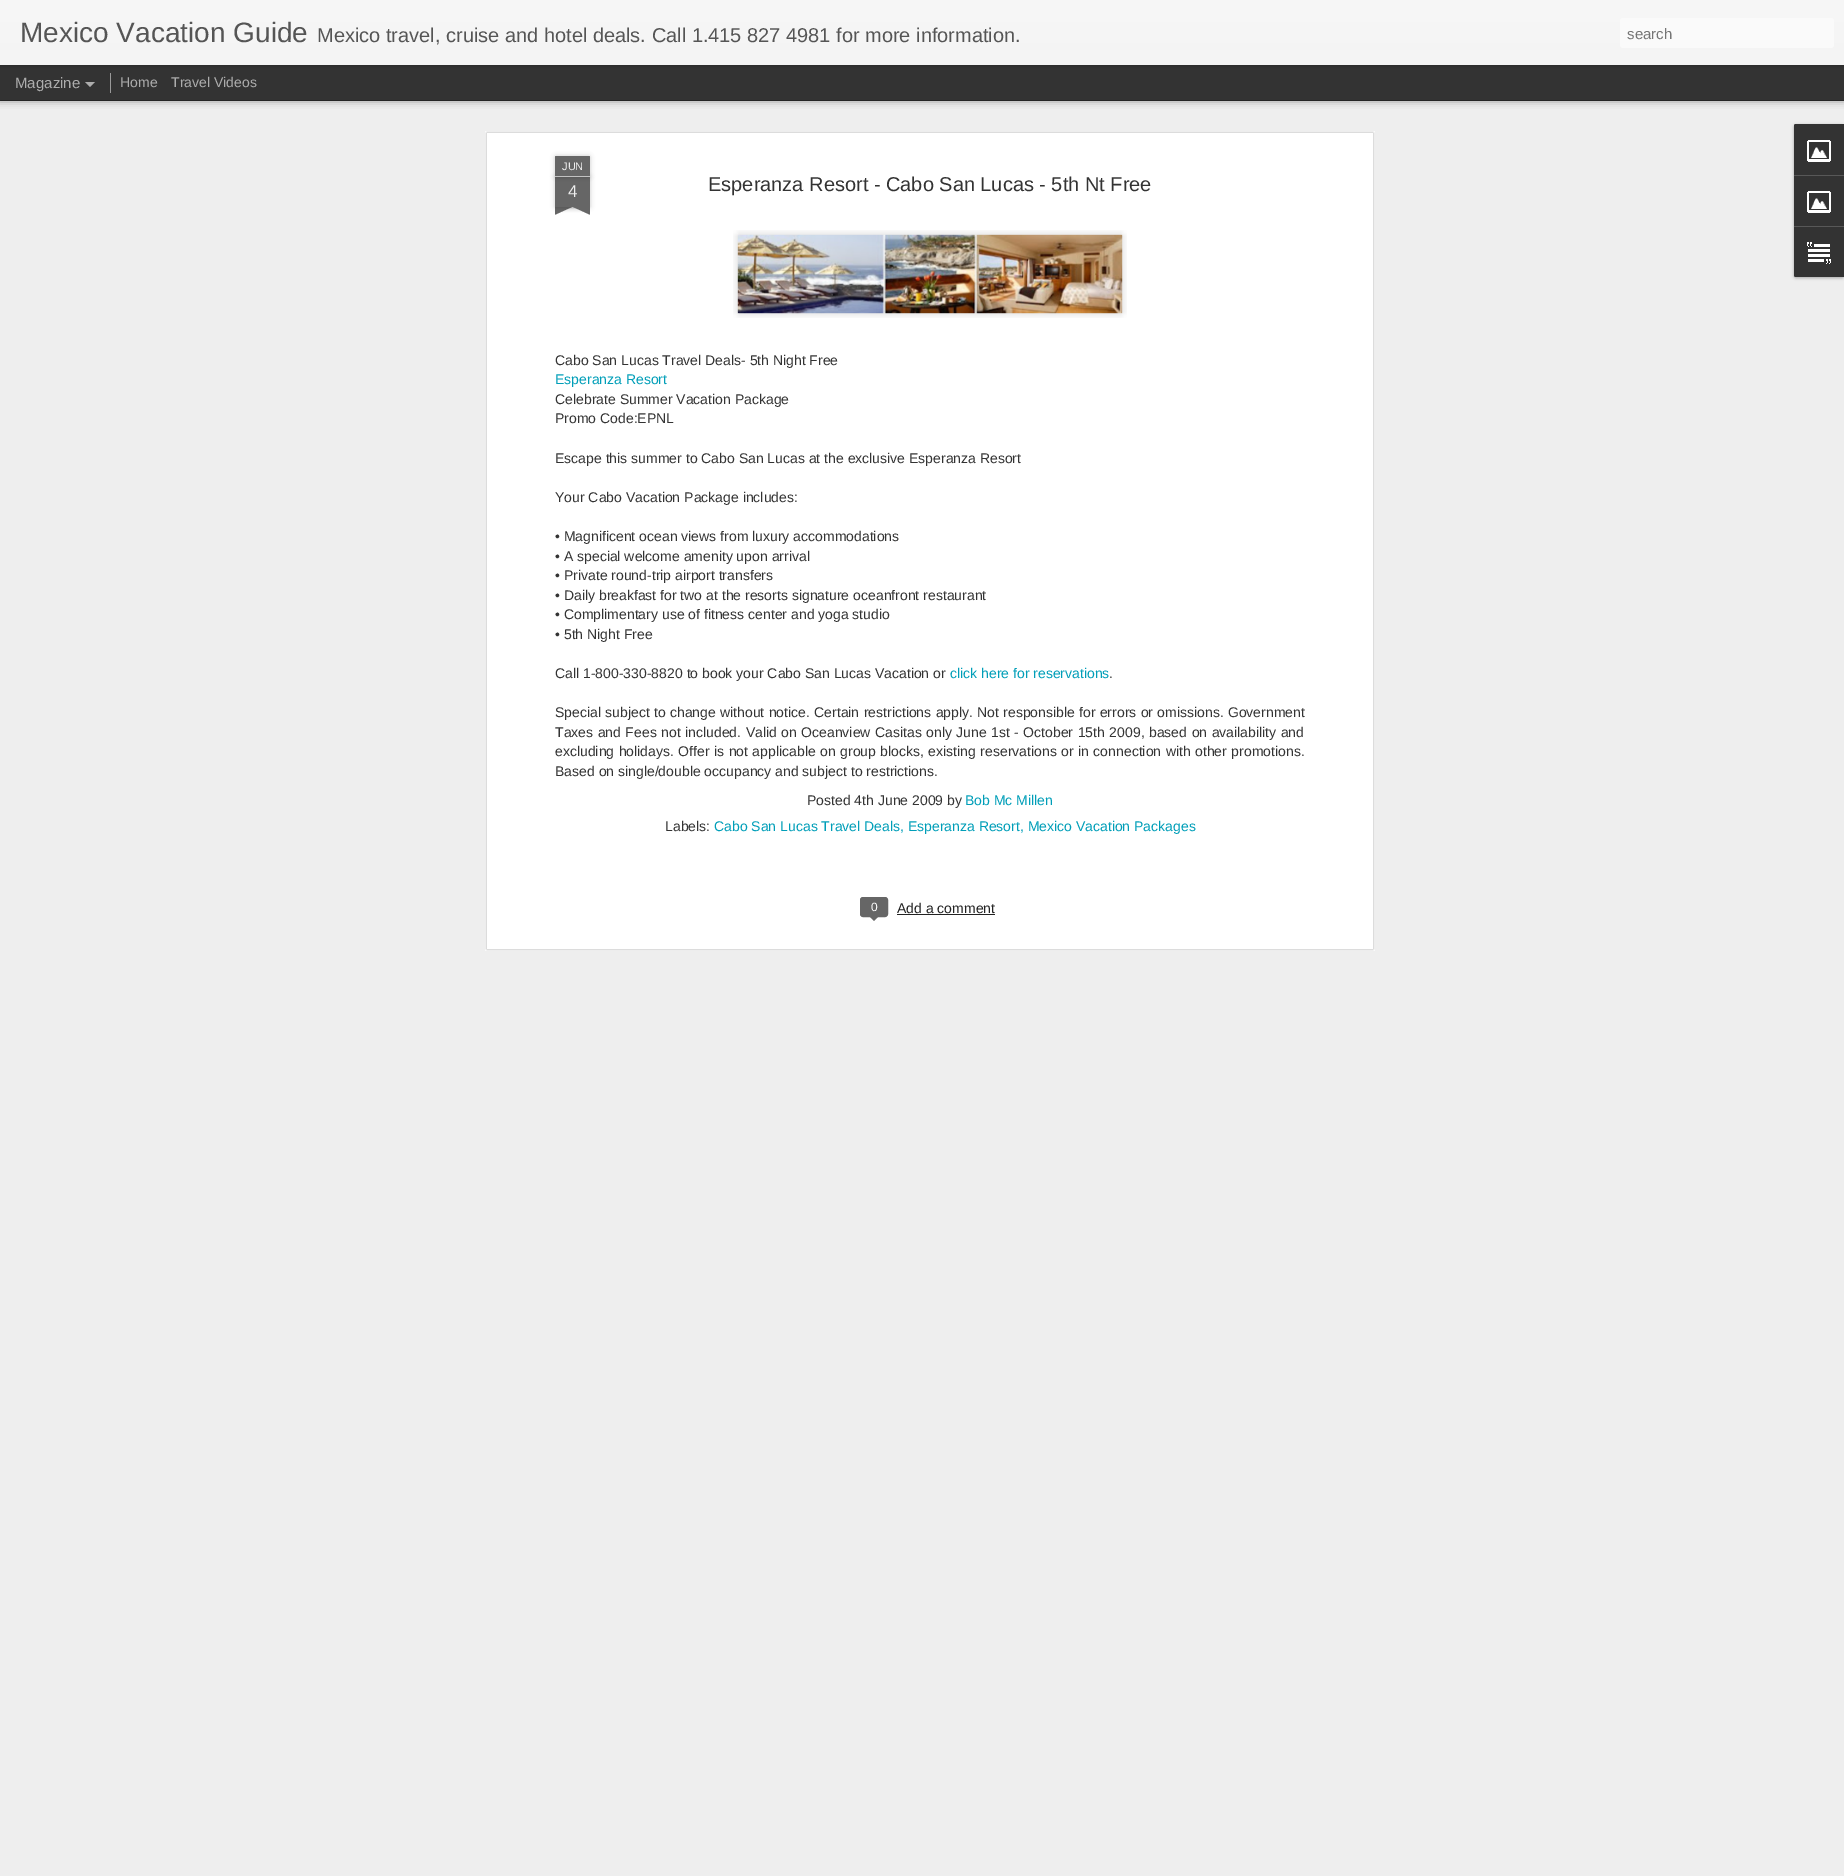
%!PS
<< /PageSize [1844 1876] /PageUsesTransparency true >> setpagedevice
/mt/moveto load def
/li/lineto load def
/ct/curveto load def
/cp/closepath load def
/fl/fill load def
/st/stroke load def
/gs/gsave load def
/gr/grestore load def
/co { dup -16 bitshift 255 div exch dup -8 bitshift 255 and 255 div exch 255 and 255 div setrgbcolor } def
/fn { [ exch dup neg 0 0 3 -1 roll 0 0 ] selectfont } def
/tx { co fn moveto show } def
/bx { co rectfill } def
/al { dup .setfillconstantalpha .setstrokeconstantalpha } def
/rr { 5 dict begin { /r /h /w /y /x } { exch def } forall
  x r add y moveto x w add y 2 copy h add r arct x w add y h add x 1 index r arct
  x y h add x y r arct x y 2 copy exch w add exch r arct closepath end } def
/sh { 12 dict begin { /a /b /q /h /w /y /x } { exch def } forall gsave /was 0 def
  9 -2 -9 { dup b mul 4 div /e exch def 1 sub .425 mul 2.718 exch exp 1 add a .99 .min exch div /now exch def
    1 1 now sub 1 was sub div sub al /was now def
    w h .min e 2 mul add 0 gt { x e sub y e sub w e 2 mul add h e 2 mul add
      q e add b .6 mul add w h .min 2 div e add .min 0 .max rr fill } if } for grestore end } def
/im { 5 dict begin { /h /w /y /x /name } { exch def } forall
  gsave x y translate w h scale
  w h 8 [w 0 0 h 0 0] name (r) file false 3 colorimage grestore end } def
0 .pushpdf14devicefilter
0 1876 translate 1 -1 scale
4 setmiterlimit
0 0 1844 1876 16#333333 bx
0 101 1844 1775 16#EEEEEE bx
16#000000 co
0 65 1844 35 0 4 .5 sh
0 65 1844 35 16#333333 bx
110 73 1 20 16#999999 bx
16#000000 co
0 0 1844 65 0 2.5 .3 sh
gs 0 0 mt 1844 0 li 1844 65 li 0 65 li cp clip newpath
<< /ShadingType 2 /ColorSpace /DeviceRGB /Coords [0 0 0 65] /Extend [true true] /Function << /FunctionType 2 /Domain [0 1] /C0 [.969 .969 .969] /C1 [.957 .957 .957] /N 1 >> >> shfill gr
16#FAFAFA co
1620 18 214 30 3 rr fl
16#ADADAD co
85 82 mt 95 82 li 90 87 li cp fl
485 131 890 820 16#FFFFFF bx
(media/1.raw) 485 131 890 820 im
16#000000 co
555 177 35 30 0 2.5 .2 sh
555 177 35 30 16#666666 bx
16#000000 co
555 156 35 21 1 2.5 .2 sh
16#666666 co
556 156 mt 589 156 li 589.5 156 590 156.5 590 157 ct 590 177 li 555 177 li 555 157 li 555 156.5 555.5 156 556 156 ct cp fl
555 176 35 1 16#C2C2C2 bx
gs
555 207 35 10 rectclip
16#000000 co
546 197 50 10 0 2.5 .2 sh
gr
gs
555 207 35 10 rectclip
16#666666 co
546 208 mt 592 187 li 596 196 li 550 217 li cp fl
gr
gs
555 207 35 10 rectclip
16#000000 co
549 197 50 10 0 2.5 .2 sh
gr
gs
555 207 35 10 rectclip
16#666666 co
553 187 mt 599 208 li 595 217 li 549 196 li cp fl
gr
(media/2.raw) 733 230 394 88 im
(media/3.raw) 737 234 386 80 im
16#666666 co
860.5 897.5 27 19 2.5 rr gs fl gr
st
869 916 mt 879 916 li 874 921 li cp fl
897 914 98 1 16#222222 bx
16#000000 co
1794 125 50 153 2 1.5 .3 sh
16#333333 co
1796 124 mt 1844 124 li 1844 277 li 1796 277 li 1795 277 1794 276 1794 275 ct 1794 126 li 1794 125 1795 124 1796 124 ct cp fl
1796 124 mt 1844 124 li 1844 175 li 1794 175 li 1794 126 li 1794 125 1795 124 1796 124 ct cp fl
(media/4.raw) 1807 140 24 22 im
1794 175 50 1 16#585858 bx
(media/4.raw) 1807 191 24 22 im
16#333333 co
1794 226 mt 1844 226 li 1844 277 li 1796 277 li 1795 277 1794 276 1794 275 ct cp fl
1794 226 50 1 16#585858 bx
(media/5.raw) 1807 242 24 22 im
(Mexico Vacation Guide) 20 42 /LiberationSans-Regular 28 16#555555 tx
(Mexico travel, cruise and hotel deals. Call 1.415 827 4981 for more information.) 317 42 /LiberationSans-Regular 20 16#555555 tx
(search) 1627 39 /LiberationSans-Regular 15 16#757575 tx
(Magazine) 15 88 /LiberationSans-Regular 15 16#ADADAD tx
(Home) 120 87 /LiberationSans-Regular 14 16#ADADAD tx
(Travel Videos) 171 87 /LiberationSans-Regular 14 16#ADADAD tx
(JUN) 562 170 /LiberationSans-Regular 11 16#EEEEEE tx
(4) 568 197 /LiberationSans-Regular 17 16#EEEEEE tx
(Esperanza Resort - Cabo San Lucas - 5th Nt Free) 708 191 /LiberationSans-Regular 20 16#333333 tx
(Cabo San Lucas Travel Deals- 5th Night Free) 555 365 /LiberationSans-Regular 14 16#333333 tx
(Esperanza Resort) 555 384 /LiberationSans-Regular 14 16#009EB8 tx
(Celebrate Summer Vacation Package) 555 404 /LiberationSans-Regular 14 16#333333 tx
(Promo Code:EPNL) 555 423 /LiberationSans-Regular 14 16#333333 tx
(Escape this summer to Cabo San Lucas at the exclusive Esperanza Resort) 555 463 /LiberationSans-Regular 14 16#333333 tx
(Your Cabo Vacation Package includes:) 555 502 /LiberationSans-Regular 14 16#333333 tx
(• Magnificent ocean views from luxury accommodations) 555 541 /LiberationSans-Regular 14 16#333333 tx
(• A special welcome amenity upon arrival) 555 561 /LiberationSans-Regular 14 16#333333 tx
(• Private round-trip airport transfers) 555 580 /LiberationSans-Regular 14 16#333333 tx
(• Daily breakfast for two at the resorts signature oceanfront restaurant) 555 600 /LiberationSans-Regular 14 16#333333 tx
(• Complimentary use of fitness center and yoga studio) 555 619 /LiberationSans-Regular 14 16#333333 tx
(• 5th Night Free) 555 639 /LiberationSans-Regular 14 16#333333 tx
(Call 1-800-330-8820 to book your Cabo San Lucas Vacation or) 555 678 /LiberationSans-Regular 14 16#333333 tx
(click here for reservations) 950 678 /LiberationSans-Regular 14 16#009EB8 tx
(.) 1109 678 /LiberationSans-Regular 14 16#333333 tx
555 717 mt .4 0 32 (Special subject to change without notice. Certain restrictions apply. Not responsible for errors or omissions. Government) widthshow
555 737 mt .6 0 32 (Taxes and Fees not included. Valid on Oceanview Casitas only June 1st - October 15th 2009, based on availability and) widthshow
555 756 mt .6 0 32 (excluding holidays. Offer is not applicable on group blocks, existing reservations or in connection with other promotions.) widthshow
(Based on single/double occupancy and subject to restrictions.) 555 776 /LiberationSans-Regular 14 16#333333 tx
(Posted 4th June 2009 by) 807 805 /LiberationSans-Regular 14 16#333333 tx
(Bob Mc Millen) 965 805 /LiberationSans-Regular 14 16#009EB8 tx
(Labels:) 665 831 /LiberationSans-Regular 14 16#333333 tx
(Cabo San Lucas Travel Deals, Esperanza Resort, Mexico Vacation Packages) 714 831 /LiberationSans-Regular 14 16#009EB8 tx
(0) 871 911 /LiberationSans-Regular 12 16#FFFFFF tx
(Add a comment) 897 913 /LiberationSans-Regular 14 16#222222 tx
.poppdf14devicefilter showpage
